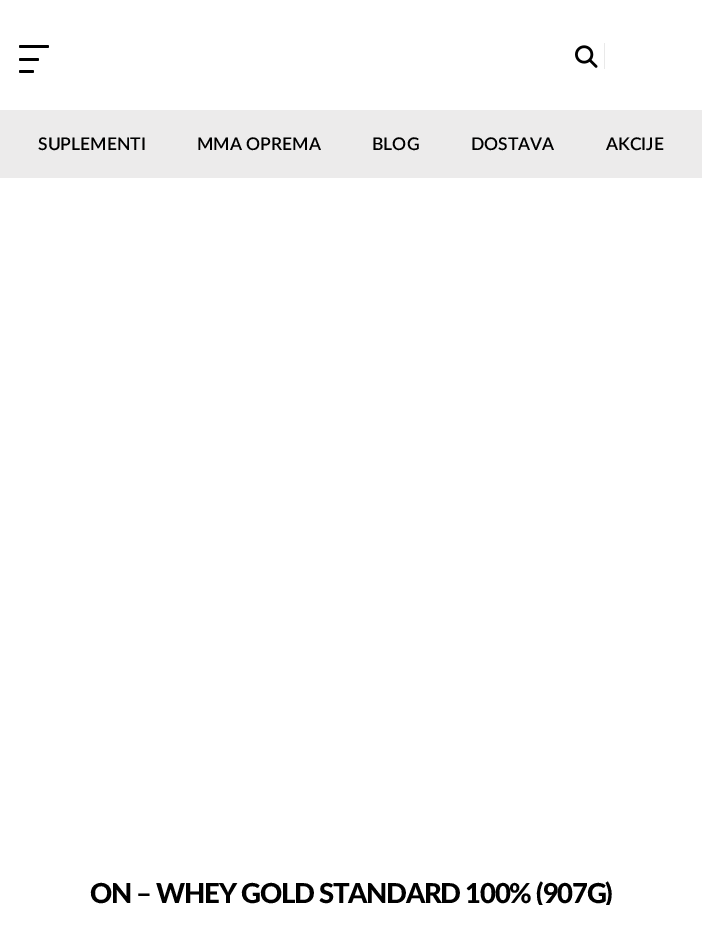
%!PS
<< /PageSize [702 943] >> setpagedevice
/mt/moveto load def
/fl/fill load def
/gs/gsave load def
/gr/grestore load def
/co { dup -16 bitshift 255 div exch dup -8 bitshift 255 and 255 div exch 255 and 255 div setrgbcolor } def
/fn { [ exch dup neg 0 0 3 -1 roll 0 0 ] selectfont } def
/tx { co fn moveto show } def
/bx { co rectfill } def
/rr { 5 dict begin { /r /h /w /y /x } { exch def } forall
  x r add y moveto x w add y 2 copy h add r arct x w add y h add x 1 index r arct
  x y h add x y r arct x y 2 copy exch w add exch r arct closepath end } def
/im { 5 dict begin { /h /w /y /x /name } { exch def } forall
  gsave x y translate w h scale
  w h 8 [w 0 0 h 0 0] name (r) file false 3 colorimage grestore end } def
0 943 translate 1 -1 scale
4 setmiterlimit
0 0 702 943 16#FFFFFF bx
16#000000 co
19 45 30 3 1.5 rr fl
19 58 20 3 1.5 rr fl
19 70 15 3 1.5 rr fl
604 43 1 26 16#E9E9E9 bx
(media/1.raw) 575 45 23 23 im
0 110 702 68 16#ECEBEB bx
(SUPLEMENTI) 38 150 /Lato-SemiBold 17.5 16#000000 tx
(MMA OPREMA) 197 150 /Lato-SemiBold 17.5 16#000000 tx
(BLOG) 372 150 /Lato-SemiBold 17.5 16#000000 tx
(DOSTAVA) 471 150 /Lato-SemiBold 17.5 16#000000 tx
(AKCIJE) 606 150 /Lato-SemiBold 17.5 16#000000 tx
gs
19 880 665 25 rectclip
/Lato-Black 27.5 fn
90 903 mt -1.25 0 (ON – WHEY GOLD STANDARD 100% \(907G\)) ashow
gr
showpage
